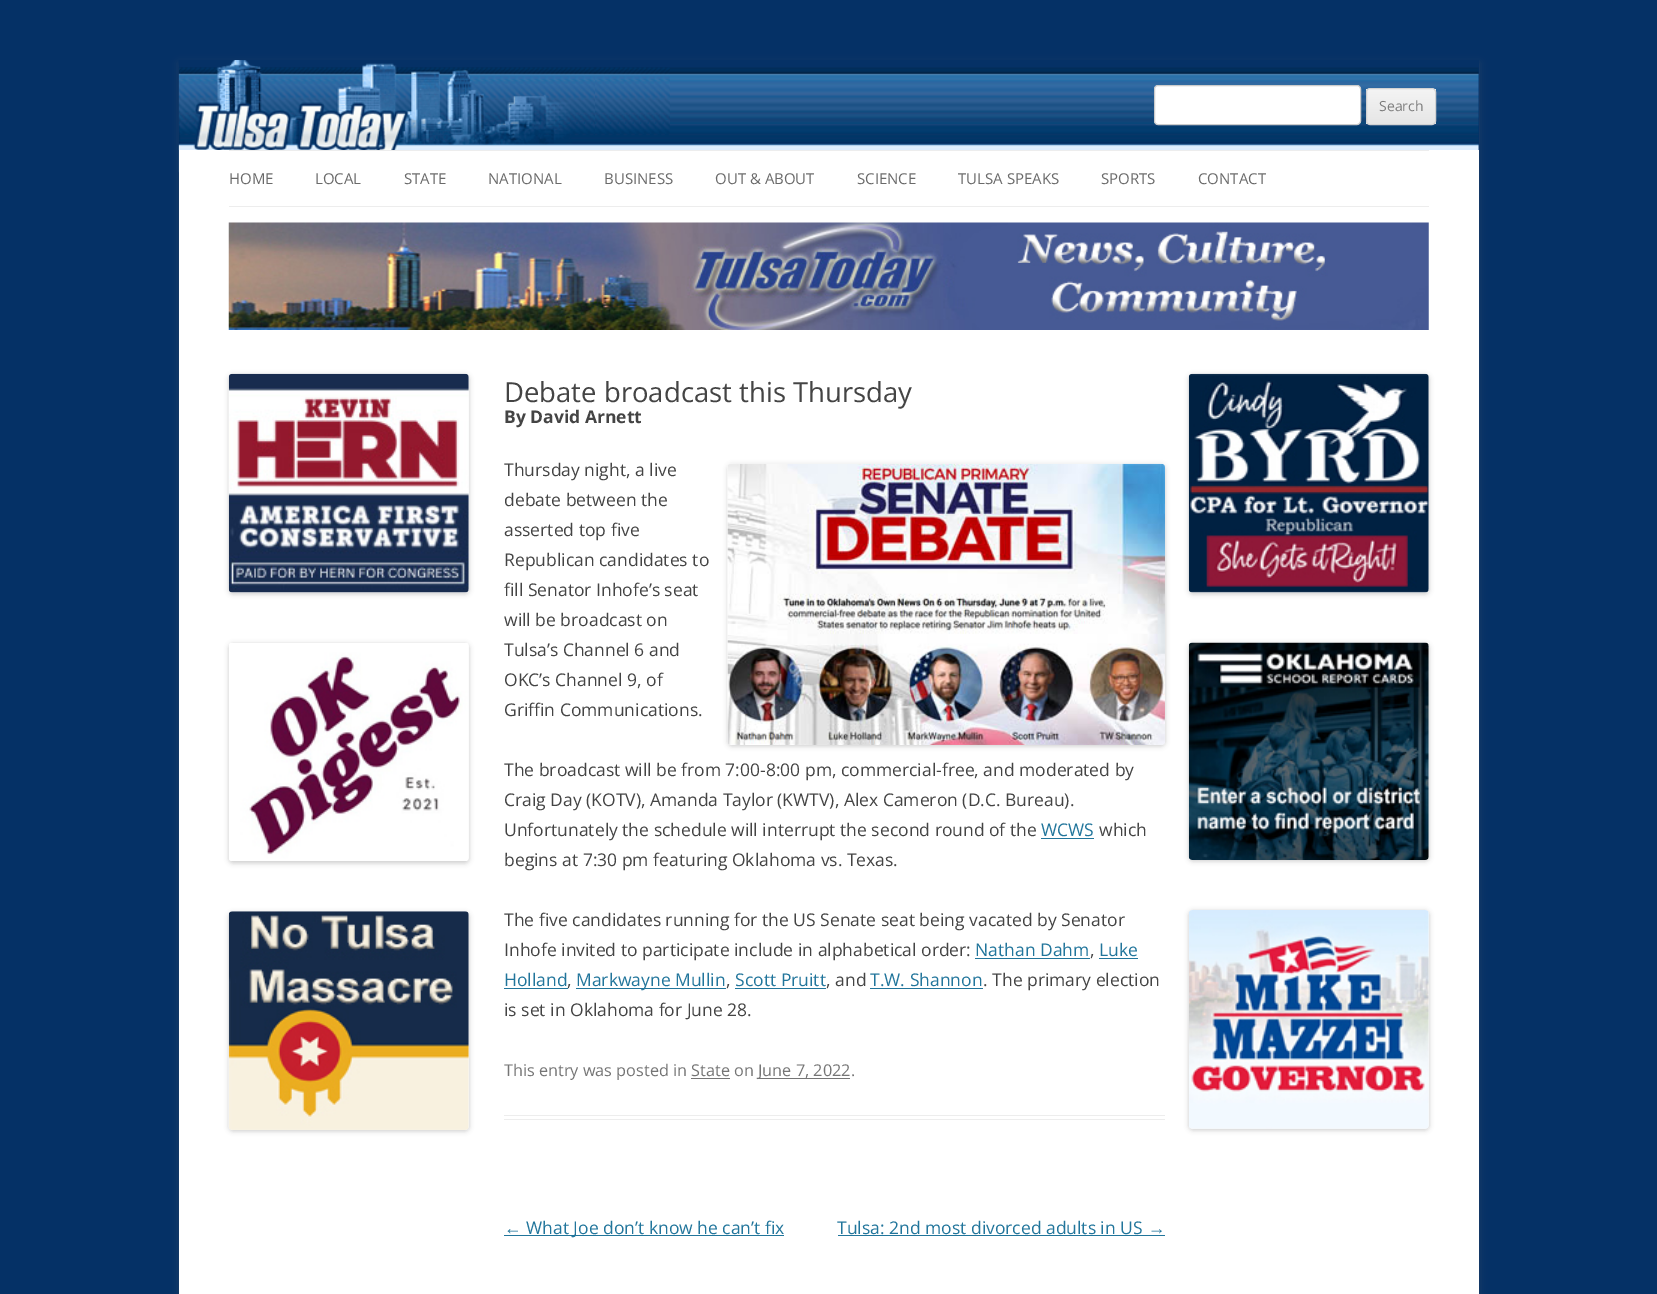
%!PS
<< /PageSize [1657 1294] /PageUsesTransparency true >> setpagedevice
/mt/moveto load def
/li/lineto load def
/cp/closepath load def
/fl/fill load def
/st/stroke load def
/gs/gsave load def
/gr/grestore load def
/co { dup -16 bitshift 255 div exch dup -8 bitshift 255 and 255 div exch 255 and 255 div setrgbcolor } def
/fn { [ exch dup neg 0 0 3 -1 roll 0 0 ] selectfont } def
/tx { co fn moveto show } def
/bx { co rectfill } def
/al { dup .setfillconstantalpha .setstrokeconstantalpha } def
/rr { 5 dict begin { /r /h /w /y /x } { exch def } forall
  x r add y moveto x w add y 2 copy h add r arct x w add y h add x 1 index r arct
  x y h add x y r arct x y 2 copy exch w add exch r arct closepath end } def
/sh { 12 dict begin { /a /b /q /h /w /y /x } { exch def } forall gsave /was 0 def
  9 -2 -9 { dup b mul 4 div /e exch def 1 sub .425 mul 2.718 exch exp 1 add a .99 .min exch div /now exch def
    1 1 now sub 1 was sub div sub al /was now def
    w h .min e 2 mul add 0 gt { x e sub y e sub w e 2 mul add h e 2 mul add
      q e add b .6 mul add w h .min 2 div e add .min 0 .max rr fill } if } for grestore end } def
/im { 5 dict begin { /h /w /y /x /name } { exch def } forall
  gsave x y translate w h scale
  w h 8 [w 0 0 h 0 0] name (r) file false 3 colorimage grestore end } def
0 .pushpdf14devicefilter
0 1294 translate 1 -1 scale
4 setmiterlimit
0 0 1657 1294 16#053166 bx
16#646464 co
179 63 1300 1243 0 4 .3 sh
179 208 1300 1086 16#FFFFFF bx
179 60 1300 90 16#053166 bx
(media/1.raw) 178 67 1301 106 im
(media/2.raw) 178 60 492 90 im
16#FFFFFF co
1154.5 85.5 206 39 3.5 rr gs fl gr
16#CCCCCC co
st
gs
1366 88 70 37 4 rr clip newpath
gs 1366 89 mt 1436 89 li 1436 124 li 1366 124 li cp clip newpath
<< /ShadingType 2 /ColorSpace /DeviceRGB /Coords [1401 89 1401 124] /Extend [true true] /Function << /FunctionType 2 /Domain [0 1] /C0 [.957 .957 .957] /C1 [.902 .902 .902] /N 1 >> >> shfill gr
gr
16#D2D2D2 co
1366.5 88.5 69 36 3.5 rr st
179 150 1300 58 16#FFFFFF bx
229 150 1200 1 16#EDEDED bx
229 206 1200 1 16#EDEDED bx
(media/3.raw) 228 222 1201 108 im
16#000000 co
229 375 240 219 4 2.5 .2 sh
(media/4.raw) 228 373 241 220 im
229 644 240 219 4 2.5 .2 sh
(media/5.raw) 229 643 240 218 im
229 913 240 218 4 2.5 .2 sh
(media/6.raw) 228 911 241 219 im
504 1115 661 1 16#EDEDED bx
504 1119 661 1 16#EDEDED bx
16#000000 co
728 465 437 281 4 2.5 .2 sh
(media/7.raw) 727 463 438 282 im
1041 838 53 1 16#21759B bx
975 958 115 1 16#21759B bx
1099 958 39 1 16#21759B bx
504 988 64 1 16#21759B bx
576 988 150 1 16#21759B bx
735 988 91 1 16#21759B bx
870 988 113 1 16#21759B bx
758 1078 92 1 16#757575 bx
691 1078 39 1 16#757575 bx
504 1235 280 1 16#21759B bx
838 1235 327 1 16#21759B bx
16#000000 co
1189 375 240 219 4 2.5 .2 sh
(media/8.raw) 1188 373 241 220 im
1189 644 240 217 4 2.5 .2 sh
(media/9.raw) 1188 642 241 218 im
1189 911 240 219 4 2.5 .2 sh
(media/10.raw) 1189 910 240 219 im
(Search) 1379 111 /OpenSans-Regular 14 16#7C7C7C tx
(HOME) 229 184 /OpenSans-Regular 15 16#6A6A6A tx
(LOCAL) 315 184 /OpenSans-Regular 15 16#6A6A6A tx
(STATE) 404 184 /OpenSans-Regular 15 16#6A6A6A tx
(NATIONAL) 488 184 /OpenSans-Regular 15 16#6A6A6A tx
(BUSINESS) 604 184 /OpenSans-Regular 15 16#6A6A6A tx
(OUT & ABOUT) 715 184 /OpenSans-Regular 15 16#6A6A6A tx
(SCIENCE) 857 184 /OpenSans-Regular 15 16#6A6A6A tx
(TULSA SPEAKS) 958 184 /OpenSans-Regular 15 16#6A6A6A tx
(SPORTS) 1101 184 /OpenSans-Regular 15 16#6A6A6A tx
(CONTACT) 1198 184 /OpenSans-Regular 15 16#6A6A6A tx
(Debate broadcast this Thursday) 504 402 /OpenSans-Regular 27.5 16#444444 tx
(By David Arnett) 504 423 /OpenSans-Bold 17.5 16#444444 tx
(Thursday night, a live) 504 476 /OpenSans-Regular 17.5 16#444444 tx
(debate between the) 504 506 /OpenSans-Regular 17.5 16#444444 tx
(asserted top five) 504 536 /OpenSans-Regular 17.5 16#444444 tx
(Republican candidates to) 504 566 /OpenSans-Regular 17.5 16#444444 tx
(fill Senator Inhofe’s seat) 504 596 /OpenSans-Regular 17.5 16#444444 tx
(will be broadcast on) 504 626 /OpenSans-Regular 17.5 16#444444 tx
(Tulsa’s Channel 6 and) 504 656 /OpenSans-Regular 17.5 16#444444 tx
(OKC’s Channel 9, of) 504 686 /OpenSans-Regular 17.5 16#444444 tx
(Griffin Communications.) 504 716 /OpenSans-Regular 17.5 16#444444 tx
(The broadcast will be from 7:00-8:00 pm, commercial-free, and moderated by) 504 776 /OpenSans-Regular 17.5 16#444444 tx
(Craig Day \(KOTV\), Amanda Taylor \(KWTV\), Alex Cameron \(D.C. Bureau\).) 504 806 /OpenSans-Regular 17.5 16#444444 tx
(Unfortunately the schedule will interrupt the second round of the) 504 836 /OpenSans-Regular 17.5 16#444444 tx
(WCWS) 1041 836 /OpenSans-Regular 17.5 16#21759B tx
(which) 1099 836 /OpenSans-Regular 17.5 16#444444 tx
(begins at 7:30 pm featuring Oklahoma vs. Texas.) 504 866 /OpenSans-Regular 17.5 16#444444 tx
(The five candidates running for the US Senate seat being vacated by Senator) 504 926 /OpenSans-Regular 17.5 16#444444 tx
(Inhofe invited to participate include in alphabetical order:) 504 956 /OpenSans-Regular 17.5 16#444444 tx
(Nathan Dahm) 975 956 /OpenSans-Regular 17.5 16#21759B tx
(,) 1090 956 /OpenSans-Regular 17.5 16#444444 tx
(Luke) 1099 956 /OpenSans-Regular 17.5 16#21759B tx
(Holland) 504 986 /OpenSans-Regular 17.5 16#21759B tx
(,) 567 986 /OpenSans-Regular 17.5 16#444444 tx
(Markwayne Mullin) 576 986 /OpenSans-Regular 17.5 16#21759B tx
(,) 726 986 /OpenSans-Regular 17.5 16#444444 tx
(Scott Pruitt) 735 986 /OpenSans-Regular 17.5 16#21759B tx
(, and) 826 986 /OpenSans-Regular 17.5 16#444444 tx
(T.W. Shannon) 870 986 /OpenSans-Regular 17.5 16#21759B tx
(. The primary election) 983 986 /OpenSans-Regular 17.5 16#444444 tx
(is set in Oklahoma for June 28.) 504 1016 /OpenSans-Regular 17.5 16#444444 tx
(This entry was posted in State on) 504 1076 /OpenSans-Regular 16.25 16#757575 tx
(June 7, 2022.) 758 1076 /OpenSans-Regular 16.25 16#757575 tx
(←) 504 1234 /LiberationSans-Regular 17.5 16#21759B tx
(What Joe don’t know he can’t fix) 526 1234 /OpenSans-Regular 17.5 16#21759B tx
(Tulsa: 2nd most divorced adults in US) 837 1234 /OpenSans-Regular 17.5 16#21759B tx
(→) 1148 1234 /LiberationSans-Regular 17.5 16#21759B tx
.poppdf14devicefilter showpage
